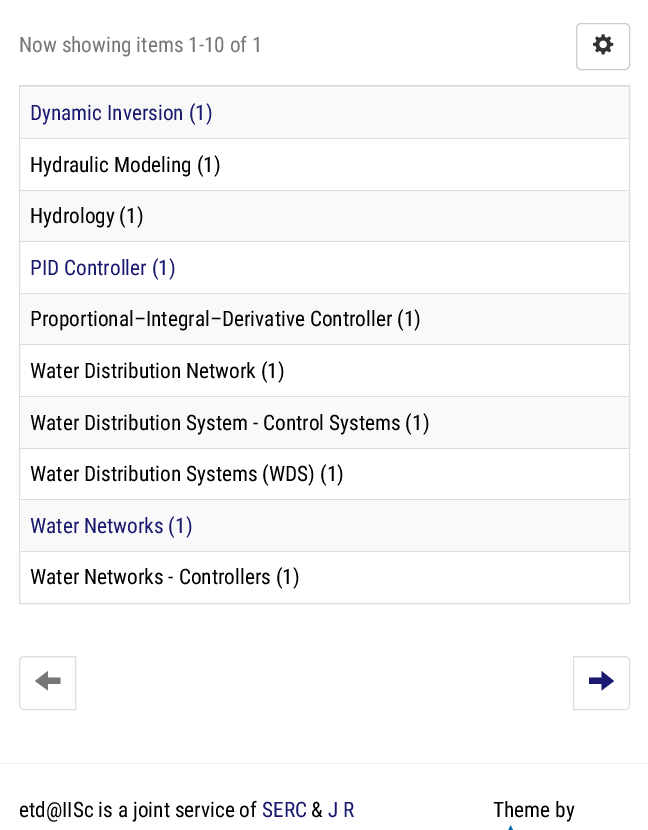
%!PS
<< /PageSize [648 830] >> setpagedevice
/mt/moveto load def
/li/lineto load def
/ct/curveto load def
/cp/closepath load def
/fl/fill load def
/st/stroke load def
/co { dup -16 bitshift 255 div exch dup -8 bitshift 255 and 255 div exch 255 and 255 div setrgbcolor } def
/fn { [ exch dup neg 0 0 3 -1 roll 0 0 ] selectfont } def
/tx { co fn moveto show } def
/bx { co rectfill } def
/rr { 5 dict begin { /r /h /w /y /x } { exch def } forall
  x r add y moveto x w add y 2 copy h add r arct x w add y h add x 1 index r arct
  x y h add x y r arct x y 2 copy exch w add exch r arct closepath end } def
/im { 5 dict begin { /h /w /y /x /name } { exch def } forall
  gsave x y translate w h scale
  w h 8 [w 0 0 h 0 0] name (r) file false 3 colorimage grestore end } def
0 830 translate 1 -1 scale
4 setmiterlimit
0 0 648 830 16#FFFFFF bx
16#CCCCCC co
576.5 23.5 53 46 4.5 rr st
(media/1.raw) 593 34 21 21 im
16#DDDDDD co
19.5 85.5 610 518 rectstroke
20 88 609 50 16#F9F9F9 bx
20 86 609 1 16#DDDDDD bx
20 138 609 1 16#DDDDDD bx
20 191 609 50 16#F9F9F9 bx
20 190 609 1 16#DDDDDD bx
20 241 609 1 16#DDDDDD bx
20 294 609 50 16#F9F9F9 bx
20 293 609 1 16#DDDDDD bx
20 344 609 1 16#DDDDDD bx
20 397 609 51 16#F9F9F9 bx
20 396 609 1 16#DDDDDD bx
20 448 609 1 16#DDDDDD bx
20 500 609 51 16#F9F9F9 bx
20 499 609 1 16#DDDDDD bx
20 551 609 1 16#DDDDDD bx
24 656.5 mt 75.5 656.5 li 75.5 709.5 li 24 709.5 li 21.5 709.5 19.5 707.5 19.5 705 ct 19.5 661 li 19.5 658.5 21.5 656.5 24 656.5 ct cp st
16#777777 co
35 681 mt 48 671 li 48 677.5 li 60.5 677.5 li 60.5 684 li 48 684 li 48 690.5 li cp fl
16#DDDDDD co
573.5 656.5 mt 625 656.5 li 627.5 656.5 629.5 658.5 629.5 661 ct 629.5 705 li 629.5 707.5 627.5 709.5 625 709.5 ct 573.5 709.5 li cp st
16#191970 co
589 684 mt 589 677.5 li 601.5 677.5 li 601.5 671 li 614 681 li 601.5 690.5 li 601.5 684 li cp fl
0 763 648 1 16#EEEEEE bx
(media/2.raw) 508 825 5 5 im
(Now showing items 1-10 of 1) 19 52 /RobotoCondensed-Regular 21.25 16#777777 tx
(Dynamic Inversion \(1\)) 30 120 /RobotoCondensed-Regular 21.25 16#191970 tx
(Hydraulic Modeling \(1\)) 30 172 /RobotoCondensed-Regular 21.25 16#000000 tx
(Hydrology \(1\)) 30 223 /RobotoCondensed-Regular 21.25 16#000000 tx
(PID Controller \(1\)) 30 275 /RobotoCondensed-Regular 21.25 16#191970 tx
(Proportional–Integral–Derivative Controller \(1\)) 30 326 /RobotoCondensed-Regular 21.25 16#000000 tx
(Water Distribution Network \(1\)) 30 378 /RobotoCondensed-Regular 21.25 16#000000 tx
(Water Distribution System - Control Systems \(1\)) 30 430 /RobotoCondensed-Regular 21.25 16#000000 tx
(Water Distribution Systems \(WDS\) \(1\)) 30 481 /RobotoCondensed-Regular 21.25 16#000000 tx
(Water Networks \(1\)) 30 533 /RobotoCondensed-Regular 21.25 16#191970 tx
(Water Networks - Controllers \(1\)) 30 584 /RobotoCondensed-Regular 21.25 16#000000 tx
(etd@IISc is a joint service of) 19 817 /RobotoCondensed-Regular 21.25 16#000000 tx
(SERC) 262 817 /RobotoCondensed-Regular 21.25 16#191970 tx
(&) 311 817 /RobotoCondensed-Regular 21.25 16#000000 tx
(J R) 328 817 /RobotoCondensed-Regular 21.25 16#191970 tx
(Theme by) 493 817 /RobotoCondensed-Regular 21.25 16#000000 tx
showpage
